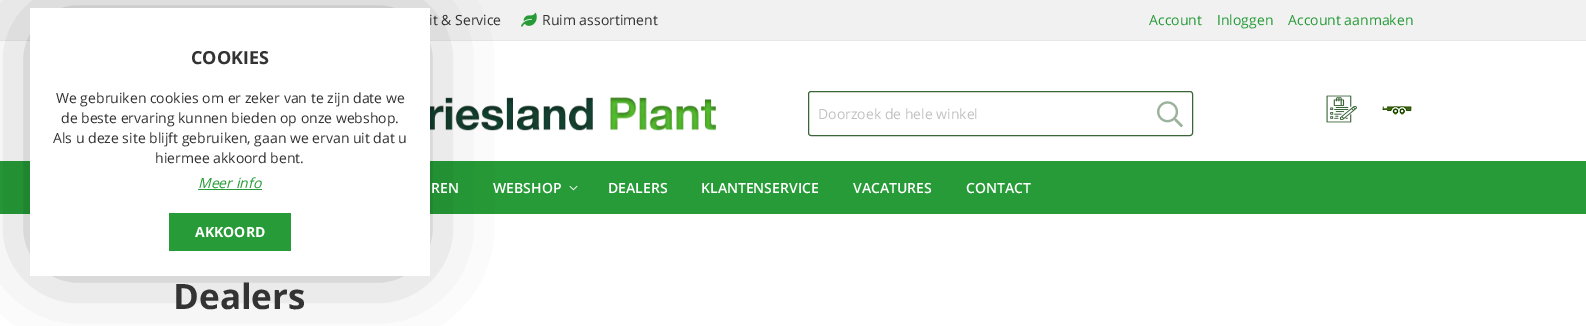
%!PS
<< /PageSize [1586 326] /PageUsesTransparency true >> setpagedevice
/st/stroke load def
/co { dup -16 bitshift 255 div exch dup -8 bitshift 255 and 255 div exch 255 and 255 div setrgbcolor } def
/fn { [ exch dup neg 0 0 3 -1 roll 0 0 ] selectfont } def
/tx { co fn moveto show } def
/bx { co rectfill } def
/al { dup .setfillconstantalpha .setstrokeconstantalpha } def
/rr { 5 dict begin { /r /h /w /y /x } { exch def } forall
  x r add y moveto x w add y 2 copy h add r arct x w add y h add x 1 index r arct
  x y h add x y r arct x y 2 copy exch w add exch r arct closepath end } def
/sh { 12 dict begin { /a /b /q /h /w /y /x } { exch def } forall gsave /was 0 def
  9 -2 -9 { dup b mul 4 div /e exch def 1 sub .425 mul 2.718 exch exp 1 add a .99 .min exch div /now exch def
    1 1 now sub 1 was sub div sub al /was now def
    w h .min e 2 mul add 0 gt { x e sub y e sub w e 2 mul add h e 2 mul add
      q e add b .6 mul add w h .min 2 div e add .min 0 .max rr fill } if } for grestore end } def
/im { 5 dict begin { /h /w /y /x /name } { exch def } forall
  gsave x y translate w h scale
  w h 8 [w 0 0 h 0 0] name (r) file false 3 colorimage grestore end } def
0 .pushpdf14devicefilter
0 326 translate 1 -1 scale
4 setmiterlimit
0 0 1586 326 16#FFFFFF bx
0 0 1586 40 16#F1F1F1 bx
0 40 1586 1 16#E8E8E8 bx
(media/1.raw) 521 12 16 15 im
(media/2.raw) 430 97 286 34 im
0 161 1586 53 16#279B37 bx
16#000000 co
54 36 348 216 0 41 .5 sh
16#396539 co
808.5 91.5 384 44 2.5 rr st
(media/3.raw) 1157 101 26 27 im
(media/4.raw) 1326 95 31 28 im
(media/5.raw) 1382 106 30 9 im
(media/6.raw) 569 185 9 6 im
(Dealers) 173 309 /OpenSans-Bold 35 16#333333 tx
(it & Service) 429 25 /OpenSans-Regular 14 16#333333 tx
30 8 400 268 16#FFFFFF bx
169 213 122 38 16#279B37 bx
(AKKOORD) 195 237 /OpenSans-Bold 14 16#FFFFFF tx
(Meer info) 198 188 /OpenSans-Italic 14 16#279B37 tx
198 189 64 1 16#279B37 bx
(hiermee akkoord bent.) 155 163 /OpenSans-Regular 14 16#333333 tx
(Als u deze site blijft gebruiken, gaan we ervan uit dat u) 53 143 /OpenSans-Regular 14 16#333333 tx
(de beste ervaring kunnen bieden op onze webshop.) 61 123 /OpenSans-Regular 14 16#333333 tx
(We gebruiken cookies om er zeker van te zijn date we) 56 103 /OpenSans-Regular 14 16#333333 tx
(COOKIES) 191 64 /OpenSans-Bold 18 16#333333 tx
(Ruim assortiment) 542 25 /OpenSans-Regular 14 16#333333 tx
(Account) 1149 25 /OpenSans-Regular 14 16#279B37 tx
(Inloggen) 1217 25 /OpenSans-Regular 14 16#279B37 tx
(Account aanmaken) 1288 25 /OpenSans-Regular 14 16#279B37 tx
(Doorzoek de hele winkel) 818 119 /OpenSans-Regular 14 16#C2C2C2 tx
(REN) 431 193 /OpenSans-SemiBold 14 16#FFFFFF tx
(WEBSHOP) 493 193 /OpenSans-SemiBold 14 16#FFFFFF tx
(DEALERS) 608 193 /OpenSans-SemiBold 14 16#FFFFFF tx
(KLANTENSERVICE) 701 193 /OpenSans-SemiBold 14 16#FFFFFF tx
(VACATURES) 853 193 /OpenSans-SemiBold 14 16#FFFFFF tx
(CONTACT) 966 193 /OpenSans-SemiBold 14 16#FFFFFF tx
.poppdf14devicefilter showpage
